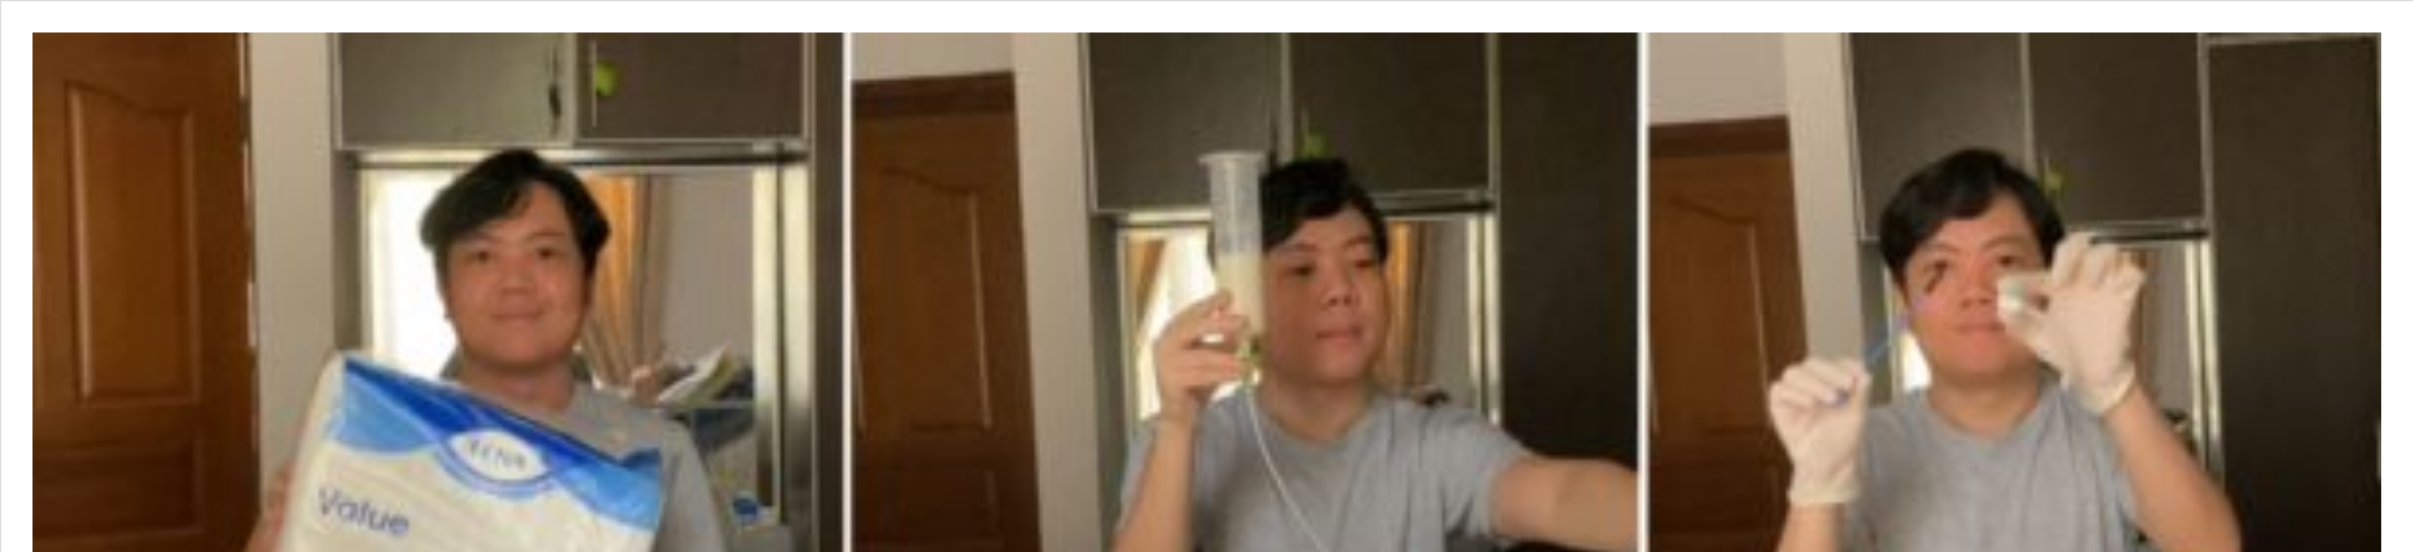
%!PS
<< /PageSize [2413 552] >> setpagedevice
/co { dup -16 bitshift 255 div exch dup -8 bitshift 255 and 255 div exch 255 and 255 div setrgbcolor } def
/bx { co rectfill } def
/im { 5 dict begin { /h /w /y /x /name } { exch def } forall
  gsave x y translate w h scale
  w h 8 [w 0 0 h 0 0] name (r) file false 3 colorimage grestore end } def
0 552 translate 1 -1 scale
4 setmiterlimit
0 0 2413 552 16#FFFFFF bx
16#DCDCDE co
.5 .5 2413 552 rectstroke
(media/1.raw) 32 32 2350 520 im
showpage
